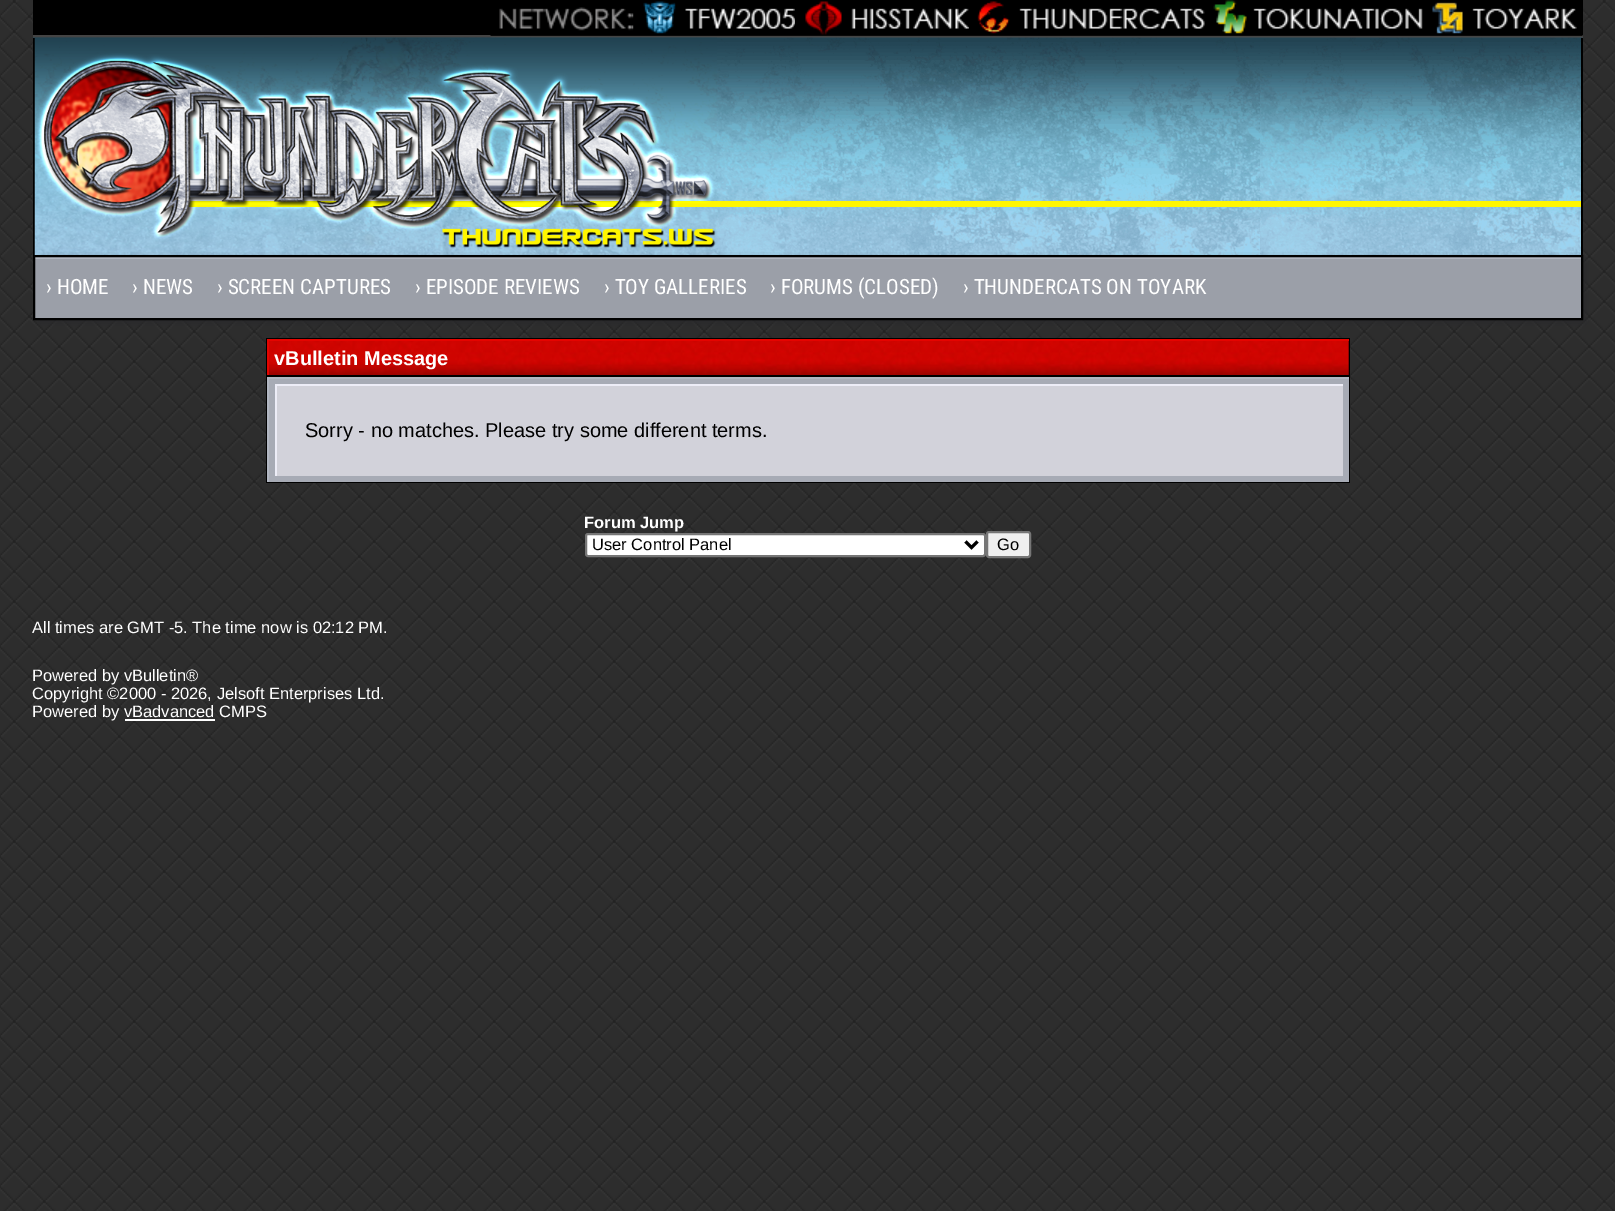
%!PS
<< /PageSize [1615 1211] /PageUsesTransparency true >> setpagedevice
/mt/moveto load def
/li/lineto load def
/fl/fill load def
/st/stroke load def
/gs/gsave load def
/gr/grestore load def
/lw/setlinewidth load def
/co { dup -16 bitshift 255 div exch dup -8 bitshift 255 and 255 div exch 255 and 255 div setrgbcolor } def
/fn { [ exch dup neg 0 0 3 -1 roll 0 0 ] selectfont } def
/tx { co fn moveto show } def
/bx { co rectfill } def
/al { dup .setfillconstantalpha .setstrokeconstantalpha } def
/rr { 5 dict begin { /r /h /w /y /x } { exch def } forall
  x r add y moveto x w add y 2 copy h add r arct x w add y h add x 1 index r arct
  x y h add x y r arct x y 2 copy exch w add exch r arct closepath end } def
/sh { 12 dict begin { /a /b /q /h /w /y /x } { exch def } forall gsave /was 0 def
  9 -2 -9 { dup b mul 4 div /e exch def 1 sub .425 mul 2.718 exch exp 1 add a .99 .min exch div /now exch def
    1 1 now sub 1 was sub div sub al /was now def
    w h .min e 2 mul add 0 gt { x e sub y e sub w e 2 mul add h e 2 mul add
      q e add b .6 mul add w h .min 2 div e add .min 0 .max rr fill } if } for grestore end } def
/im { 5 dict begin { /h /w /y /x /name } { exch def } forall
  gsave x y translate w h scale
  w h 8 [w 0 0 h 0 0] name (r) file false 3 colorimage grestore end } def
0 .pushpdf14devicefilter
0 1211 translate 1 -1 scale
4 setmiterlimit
0 0 1615 1211 16#FFFFFF bx
(media/1.raw) 0 0 1615 1211 im
33 0 1550 35 16#000000 bx
33 35 1550 3 16#444444 bx
(media/2.raw) 490 0 1093 38 im
(media/3.raw) 631 1 164 33 im
(media/4.raw) 803 1 166 34 im
(media/5.raw) 976 1 229 33 im
(media/6.raw) 33 37 1550 218 im
1581 38 2 217 16#000000 bx
33 38 2 217 16#000000 bx
(media/7.raw) 34 37 683 218 im
16#29292B co
39 261 1547 62 0 4 1 sh
35 259 1546 59 16#9B9FA8 bx
35 257 1546 2 16#B2B7C2 bx
16#000000 co
2 lw
34 256 1548 63 rectstroke
266 338 1084 145 16#000000 bx
1348 341 1 34 16#500100 bx
(media/8.raw) 269 341 1080 34 im
267 339 1082 2 16#E50400 bx
267 339 2 36 16#E50400 bx
269 379 1080 103 16#A7ABB5 bx
267 377 1082 2 16#B2B7C2 bx
267 377 2 105 16#B2B7C2 bx
277 386 1066 90 16#D2D2DA bx
275 384 1068 2 16#EDEDF7 bx
275 384 2 92 16#EDEDF7 bx
16#FFFFFF co
586 534 399 22 2 rr gs fl gr
16#767676 co
st
16#000000 co
3 lw
965.5 541.5 mt 971.5 547.5 li 977.5 541.5 li st
16#EFEFEF co
987 532 43 25 2 rr gs fl gr
16#767676 co
2 lw
st
125 719 90 2 16#FFFFFF bx
(› HOME) 46 294 /RobotoCondensed-Regular 21 16#FFFFFF tx
(› NEWS) 132 294 /RobotoCondensed-Regular 21 16#FFFFFF tx
(› SCREEN CAPTURES) 217 294 /RobotoCondensed-Regular 21 16#FFFFFF tx
(› EPISODE REVIEWS) 415 294 /RobotoCondensed-Regular 21 16#FFFFFF tx
(› TOY GALLERIES) 604 294 /RobotoCondensed-Regular 21 16#FFFFFF tx
(› FORUMS \(CLOSED\)) 770 294 /RobotoCondensed-Regular 21 16#FFFFFF tx
(› THUNDERCATS ON TOYARK) 963 294 /RobotoCondensed-Regular 21 16#FFFFFF tx
(vBulletin Message) 274 365 /LiberationSans-Bold 20 16#FFFFFF tx
(Sorry - no matches. Please try some different terms.) 305 437 /LiberationSans-Regular 20 16#000000 tx
(Forum Jump) 584 528 /LiberationSans-Bold 16.5 16#FFFFFF tx
(User Control Panel) 592 550 /LiberationSans-Regular 16.5 16#000000 tx
(Go) 997 550 /LiberationSans-Regular 16.5 16#000000 tx
(All times are GMT -5. The time now is 02:12 PM.) 32 633 /LiberationSans-Regular 16.5 16#FFFFFF tx
(Powered by vBulletin®) 32 681 /LiberationSans-Regular 16.5 16#FFFFFF tx
(Copyright ©2000 - 2026, Jelsoft Enterprises Ltd.) 32 699 /LiberationSans-Regular 16.5 16#FFFFFF tx
(Powered by vBadvanced CMPS) 32 717 /LiberationSans-Regular 16.5 16#FFFFFF tx
.poppdf14devicefilter showpage
